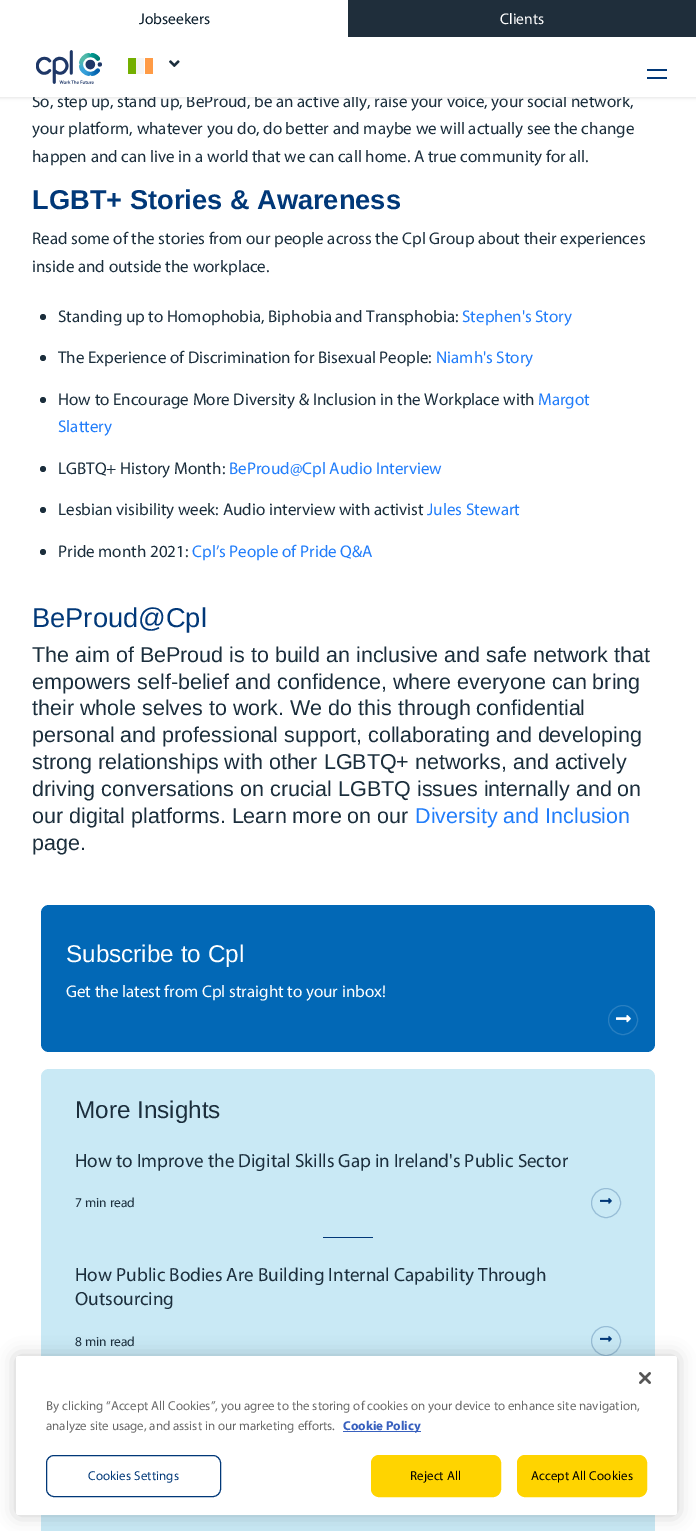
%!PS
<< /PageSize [696 1531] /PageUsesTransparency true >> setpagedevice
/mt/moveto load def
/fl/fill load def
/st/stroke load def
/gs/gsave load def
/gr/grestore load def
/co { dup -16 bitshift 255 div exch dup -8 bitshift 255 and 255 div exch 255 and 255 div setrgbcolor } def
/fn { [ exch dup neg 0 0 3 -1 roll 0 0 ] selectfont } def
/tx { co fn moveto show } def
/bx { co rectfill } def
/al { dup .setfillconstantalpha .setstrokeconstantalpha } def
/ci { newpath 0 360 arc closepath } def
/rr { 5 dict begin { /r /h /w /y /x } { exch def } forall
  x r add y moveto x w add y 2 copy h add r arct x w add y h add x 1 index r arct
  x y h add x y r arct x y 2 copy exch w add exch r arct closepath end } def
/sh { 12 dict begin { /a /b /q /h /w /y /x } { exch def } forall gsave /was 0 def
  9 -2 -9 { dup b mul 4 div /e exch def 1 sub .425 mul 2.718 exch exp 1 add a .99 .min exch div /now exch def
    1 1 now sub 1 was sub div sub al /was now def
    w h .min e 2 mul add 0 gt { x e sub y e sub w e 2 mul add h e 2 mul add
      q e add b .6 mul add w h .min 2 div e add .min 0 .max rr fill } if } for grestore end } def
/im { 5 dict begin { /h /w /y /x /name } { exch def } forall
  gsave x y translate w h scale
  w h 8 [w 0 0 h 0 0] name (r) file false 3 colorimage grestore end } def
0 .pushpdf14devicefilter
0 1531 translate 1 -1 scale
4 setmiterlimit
0 0 696 1531 16#FFFFFF bx
16#000000 co
-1 -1 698 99 0 1.5 .1 sh
16#1B2E3C co
43 317 3 ci fl
43 358 3 ci fl
43 400 3 ci fl
43 469 3 ci fl
43 510 3 ci fl
43 552 3 ci fl
16#0268B6 co
41 905 614 147 8 rr fl
16#287FC1 co
623 1020 14.5 ci st
(media/4.raw) 616 1015 15 8 im
16#C9E9F5 co
41 1069 614 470 8 rr fl
16#97BDD6 co
606 1203 14.5 ci st
(media/5.raw) 600 1198 12 6 im
323 1237 50 1 16#013878 bx
16#97BDD6 co
606 1341 14.5 ci st
(media/5.raw) 600 1336 12 6 im
16#000000 co
16 1356 661 159 2.5 9 .2 sh
16#FFFFFF co
16 1356 661 159 2.5 rr fl
(media/6.raw) 639 1372 12 12 im
343 1431 78 1 16#3860BE bx
16#013878 co
46.5 1455.5 174 41 7.5 rr st
16#FFD400 co
371.5 1455.5 129 41 7.5 rr gs fl gr
st
517.5 1455.5 129 41 7.5 rr gs fl gr
st
(So, step up, stand up, BeProud, be an active ally, raise your voice, your social network,) 32 107 /Myriad-Regular 17 16#1B2E3C tx
0 0 696 97 16#FFFFFF bx
647 77 20 2 16#013878 bx
647 69 20 2 16#013878 bx
(media/3.raw) 169 60 11 7 im
(media/2.raw) 128 58 25 16 im
(media/1.raw) 36 50 66 34 im
348 0 348 37 16#1F2E3B bx
(Clients) 500 24 /Myriad-Regular 15.5 16#FFFFFF tx
(Jobseekers) 139 24 /Myriad-Regular 15.5 16#071A28 tx
(your platform, whatever you do, do better and maybe we will actually see the change) 32 134 /Myriad-Regular 17 16#1B2E3C tx
(happen and can live in a world that we can call home. A true community for all.) 32 162 /Myriad-Regular 17 16#1B2E3C tx
(LGBT+ Stories & Awareness) 32 209 /LiberationSans-Bold 27.25 16#013878 tx
(Read some of the stories from our people across the Cpl Group about their experiences) 32 244 /Myriad-Regular 17 16#1B2E3C tx
(inside and outside the workplace.) 32 272 /Myriad-Regular 17 16#1B2E3C tx
(Standing up to Homophobia, Biphobia and Transphobia:) 58 322 /Myriad-Regular 17 16#1B2E3C tx
(Stephen's Story) 462 322 /Myriad-Regular 17 16#217DFA tx
(The Experience of Discrimination for Bisexual People:) 58 363 /Myriad-Regular 17 16#1B2E3C tx
(Niamh's Story) 436 363 /Myriad-Regular 17 16#217DFA tx
(How to Encourage More Diversity & Inclusion in the Workplace with) 58 405 /Myriad-Regular 17 16#1B2E3C tx
(Margot) 538 405 /Myriad-Regular 17 16#217DFA tx
(Slattery) 58 432 /Myriad-Regular 17 16#217DFA tx
(LGBTQ+ History Month:) 58 474 /Myriad-Regular 17 16#1B2E3C tx
(BeProud@Cpl Audio Interview) 229 474 /Myriad-Regular 17 16#217DFA tx
(Lesbian visibility week: Audio interview with activist) 58 515 /Myriad-Regular 17 16#1B2E3C tx
(Jules Stewart) 427 515 /Myriad-Regular 17 16#217DFA tx
(Pride month 2021:) 58 557 /Myriad-Regular 17 16#1B2E3C tx
(Cpl’s People of Pride Q&A) 192 557 /Myriad-Regular 17 16#217DFA tx
(BeProud@Cpl) 32 627 /LiberationSans-Regular 27.25 16#013878 tx
(The aim of BeProud is to build an inclusive and safe network that) 32 662 /LiberationSans-Regular 21.5 16#1B2E3C tx
(empowers self-belief and confidence, where everyone can bring) 32 689 /LiberationSans-Regular 21.5 16#1B2E3C tx
(their whole selves to work. We do this through confidential) 32 715 /LiberationSans-Regular 21.5 16#1B2E3C tx
(personal and professional support, collaborating and developing) 32 742 /LiberationSans-Regular 21.5 16#1B2E3C tx
(strong relationships with other LGBTQ+ networks, and actively) 32 769 /LiberationSans-Regular 21.5 16#1B2E3C tx
(driving conversations on crucial LGBTQ issues internally and on) 32 796 /LiberationSans-Regular 21.5 16#1B2E3C tx
(our digital platforms. Learn more on our) 32 823 /LiberationSans-Regular 21.5 16#1B2E3C tx
(Diversity and Inclusion) 415 823 /LiberationSans-Regular 21.5 16#217DFA tx
(page.) 32 850 /LiberationSans-Regular 21.5 16#1B2E3C tx
(Subscribe to Cpl) 66 962 /LiberationSans-Regular 24.25 16#FFFFFF tx
(Get the latest from Cpl straight to your inbox!) 66 997 /Myriad-Regular 17 16#FFFFFF tx
(More Insights) 75 1118 /LiberationSans-Regular 24.25 16#1B2E3C tx
(How to Improve the Digital Skills Gap in Ireland's Public Sector) 75 1167 /Myriad-Regular 19.1 16#1B2E3C tx
(7 min read) 75 1207 /Myriad-Regular 13.5 16#1B2E3C tx
(How Public Bodies Are Building Internal Capability Through) 75 1281 /Myriad-Regular 19.1 16#1B2E3C tx
(Outsourcing) 75 1305 /Myriad-Regular 19.1 16#1B2E3C tx
(8 min read) 75 1346 /Myriad-Regular 13.5 16#1B2E3C tx
(By clicking “Accept All Cookies”, you agree to the storing of cookies on your device to enhance site navigation,) 46 1410 /Myriad-Regular 13 16#696969 tx
(analyze site usage, and assist in our marketing efforts.) 46 1430 /Myriad-Regular 13 16#696969 tx
(Cookie Policy) 343 1430 /Myriad-Bold 13 16#3860BE tx
/Myriad-Regular 13 fn
16#013878 co
88 1480 mt .1 0 (Cookies Settings) ashow
16#000000 co
410 1480 mt .1 0 (Reject All) ashow
531 1480 mt .1 0 (Accept All Cookies) ashow
.poppdf14devicefilter showpage
